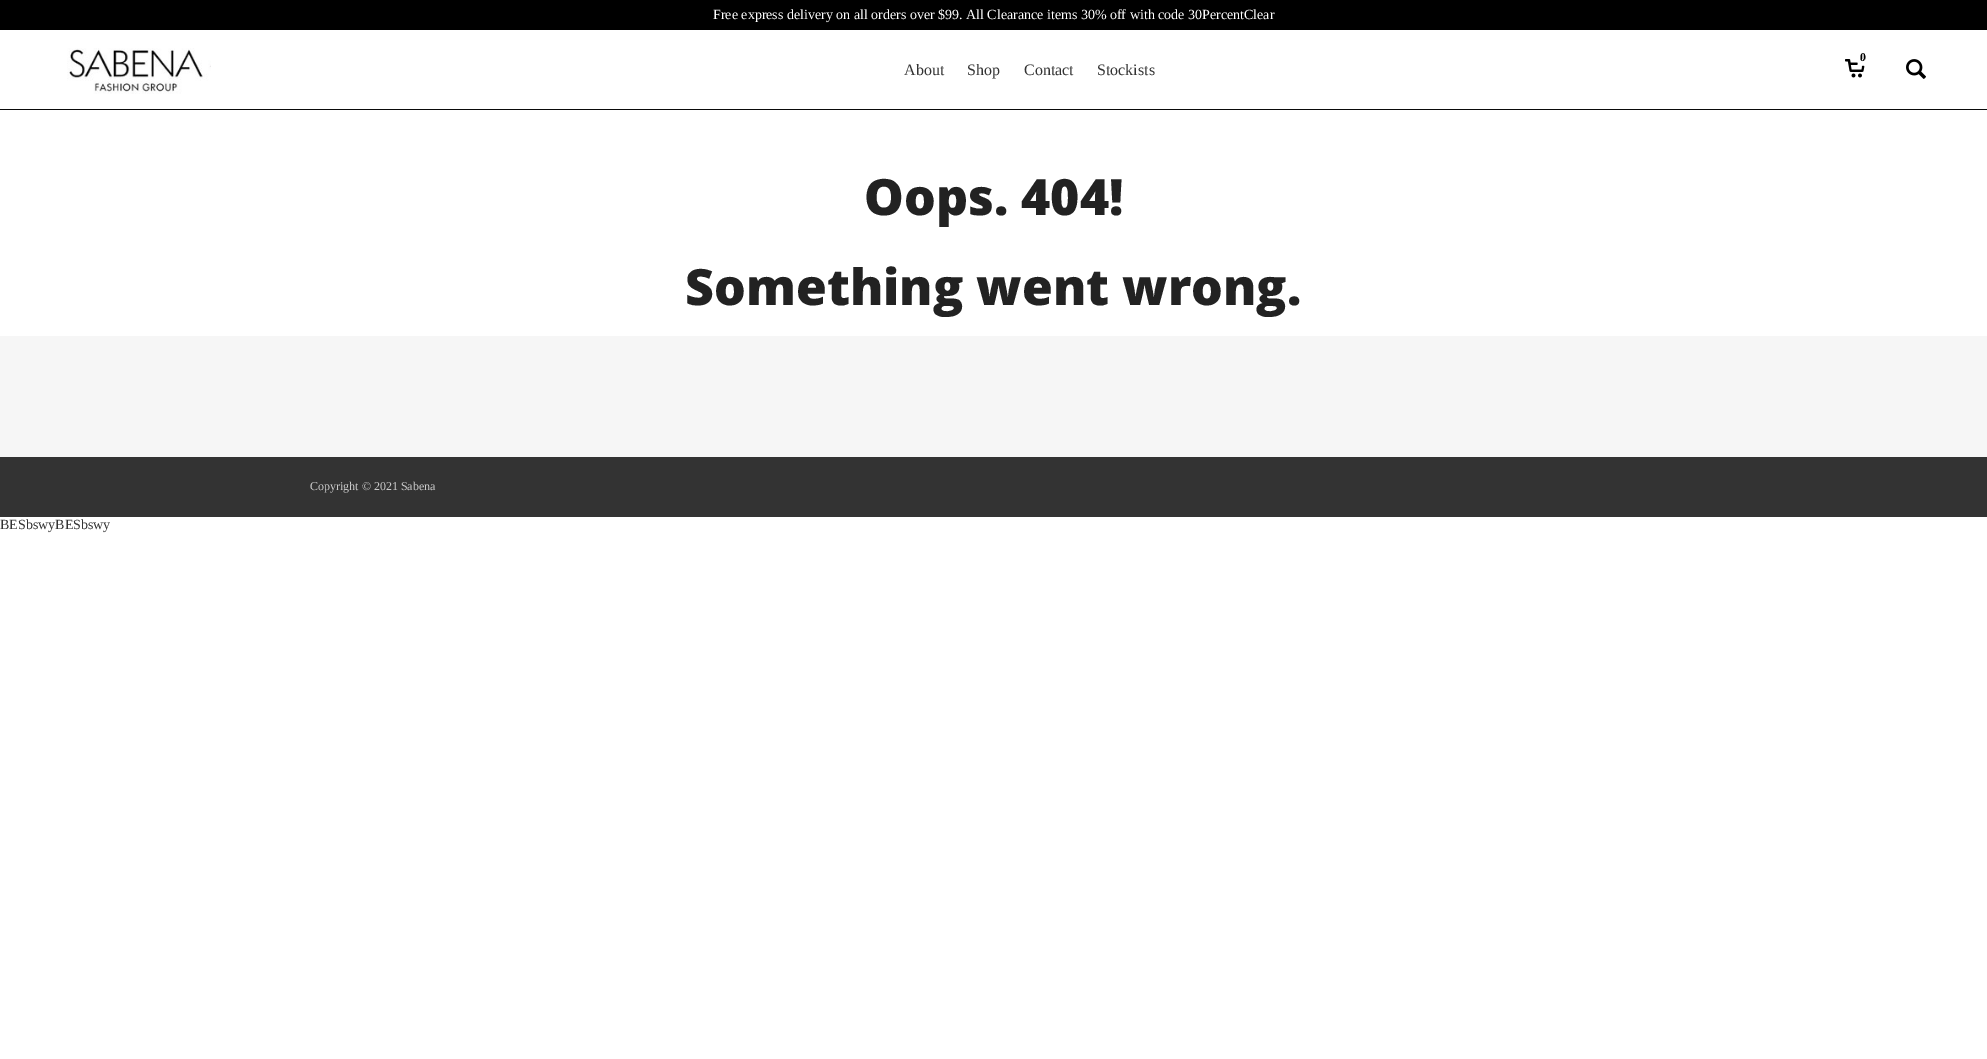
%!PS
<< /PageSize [1987 1059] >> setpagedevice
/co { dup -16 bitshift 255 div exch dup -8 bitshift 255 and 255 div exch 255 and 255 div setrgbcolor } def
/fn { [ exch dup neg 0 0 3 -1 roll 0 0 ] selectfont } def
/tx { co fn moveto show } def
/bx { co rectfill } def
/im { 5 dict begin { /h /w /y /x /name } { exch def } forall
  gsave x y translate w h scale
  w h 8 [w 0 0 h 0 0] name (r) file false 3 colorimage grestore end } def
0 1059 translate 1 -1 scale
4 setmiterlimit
0 0 1987 1059 16#FFFFFF bx
0 0 1987 30 16#000000 bx
(media/1.raw) 67 48 144 46 im
(media/3.raw) 1906 59 20 20 im
0 109 1987 1 16#0A0A0A bx
0 336 1987 121 16#F6F6F6 bx
0 457 1987 60 16#333333 bx
(Free express delivery on all orders over $99. All Clearance items 30% off with code 30PercentClear) 713 19 /LiberationSerif-Regular 14 16#FFFFFF tx
(0) 1860 61 /LiberationSerif-Bold 12 16#000000 tx
(media/2.raw) 1845 59 20 19 im
(About) 904 75 /LiberationSerif-Regular 16 16#333333 tx
(Shop) 967 75 /LiberationSerif-Regular 16 16#333333 tx
(Contact) 1024 75 /LiberationSerif-Regular 16 16#333333 tx
(Stockists) 1097 75 /LiberationSerif-Regular 16 16#333333 tx
(Oops. 404!) 864 215 /OpenSans-ExtraBold 50 16#222222 tx
(Something went wrong.) 685 305 /OpenSans-ExtraBold 50 16#222222 tx
(Copyright © 2021 Sabena) 310 490 /LiberationSerif-Regular 12 16#CCCCCC tx
(BESbswyBESbswy) 0 529 /LiberationSerif-Regular 14 16#333333 tx
showpage
